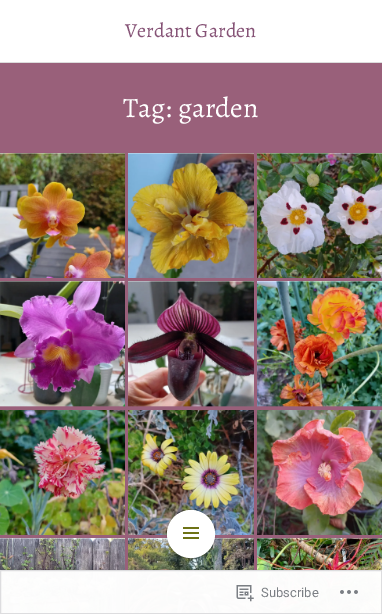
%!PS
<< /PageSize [382 614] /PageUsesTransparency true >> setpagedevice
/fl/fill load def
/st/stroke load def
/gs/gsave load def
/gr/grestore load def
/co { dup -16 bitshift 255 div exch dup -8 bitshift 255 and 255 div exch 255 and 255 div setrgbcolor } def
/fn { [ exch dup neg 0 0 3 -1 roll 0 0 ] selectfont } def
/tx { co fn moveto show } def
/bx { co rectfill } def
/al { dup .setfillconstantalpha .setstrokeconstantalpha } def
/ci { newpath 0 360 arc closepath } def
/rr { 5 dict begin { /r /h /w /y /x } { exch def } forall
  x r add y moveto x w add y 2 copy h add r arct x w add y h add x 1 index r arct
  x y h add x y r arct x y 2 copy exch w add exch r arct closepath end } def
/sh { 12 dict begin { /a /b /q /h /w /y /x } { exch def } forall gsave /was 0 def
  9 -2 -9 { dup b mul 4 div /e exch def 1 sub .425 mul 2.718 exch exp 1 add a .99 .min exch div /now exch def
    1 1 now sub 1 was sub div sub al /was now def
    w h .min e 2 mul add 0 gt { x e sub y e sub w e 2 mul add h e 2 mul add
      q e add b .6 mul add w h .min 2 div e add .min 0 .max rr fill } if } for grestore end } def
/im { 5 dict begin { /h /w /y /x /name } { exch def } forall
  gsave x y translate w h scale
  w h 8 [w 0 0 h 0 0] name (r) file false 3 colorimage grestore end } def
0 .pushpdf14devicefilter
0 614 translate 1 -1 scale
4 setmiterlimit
0 0 382 614 16#99607A bx
0 0 382 62 16#FFFFFF bx
0 62 382 1 16#DCDCDC bx
(media/9.raw) 128 410 126 125 im
128 538 126 1 16#FFFFFF bx
(media/12.raw) 128 538 126 76 im
16#000000 co
167 511 48 48 24 1 .2 sh
16#FFFFFF co
191 534 23.5 ci gs fl gr
st
(media/1.raw) 183 527 16 12 im
0 153 125 1 16#FFFFFF bx
(media/2.raw) 0 153 125 125 im
128 153 126 1 16#FFFFFF bx
(media/3.raw) 128 153 126 125 im
257 153 125 1 16#FFFFFF bx
(media/4.raw) 257 153 125 125 im
0 281 125 1 16#FFFFFF bx
(media/5.raw) 0 281 125 126 im
128 281 126 1 16#FFFFFF bx
(media/6.raw) 128 281 126 126 im
257 281 125 1 16#FFFFFF bx
(media/7.raw) 257 281 125 126 im
(media/8.raw) 0 410 125 125 im
(media/10.raw) 257 410 125 125 im
0 538 125 1 16#FFFFFF bx
(media/11.raw) 0 538 125 76 im
257 538 125 1 16#FFFFFF bx
(media/13.raw) 257 538 125 76 im
0.98 al
0 570 382 44 16#FFFFFF bx
16#DCDCDE co
.5 570.5 381 43 rectstroke
1 al
(media/14.raw) 236 585 18 17 im
(media/15.raw) 340 590 18 4 im
(Verdant Garden) 125 37 /Alegreya-Regular 20 16#865376 tx
(Tag: garden) 123 117 /Alegreya-Regular 28 16#FFFFFF tx
(Subscribe) 261 597 /Roboto-Regular 13 16#7B7F84 tx
.poppdf14devicefilter showpage
